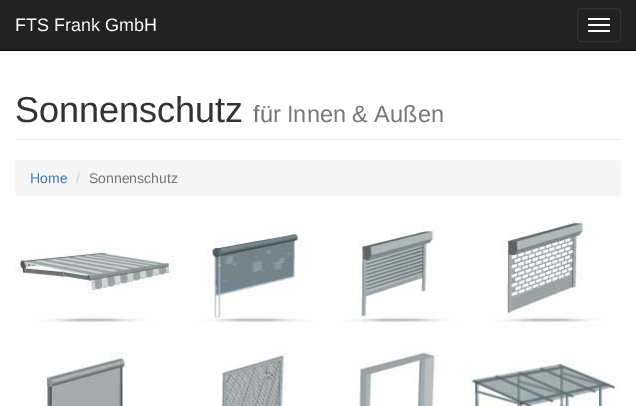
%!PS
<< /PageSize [636 406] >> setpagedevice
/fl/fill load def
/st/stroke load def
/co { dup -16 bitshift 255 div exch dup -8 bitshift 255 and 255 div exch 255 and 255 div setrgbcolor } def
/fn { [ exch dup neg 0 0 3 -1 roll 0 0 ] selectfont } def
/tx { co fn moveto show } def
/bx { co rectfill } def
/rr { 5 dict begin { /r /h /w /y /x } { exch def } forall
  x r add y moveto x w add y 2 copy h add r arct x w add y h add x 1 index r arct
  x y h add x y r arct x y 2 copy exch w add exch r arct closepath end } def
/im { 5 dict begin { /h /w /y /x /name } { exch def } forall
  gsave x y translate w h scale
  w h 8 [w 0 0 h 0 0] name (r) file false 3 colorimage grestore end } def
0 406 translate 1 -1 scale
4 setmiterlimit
0 0 636 406 16#FFFFFF bx
0 0 636 50 16#222222 bx
0 50 636 1 16#080808 bx
16#333333 co
577.5 8.5 43 33 3.5 rr st
16#FFFFFF co
588 18 22 2 1 rr fl
588 24 22 2 1 rr fl
588 30 22 2 1 rr fl
15 139 606 1 16#EEEEEE bx
16#F5F5F5 co
15 160 606 36 4 rr fl
(media/1.raw) 15 217 606 189 im
(FTS Frank GmbH) 15 31 /LiberationSans-Regular 18 16#FFFFFF tx
(Sonnenschutz) 15 122 /LiberationSans-Regular 36 16#333333 tx
(für Innen & Außen) 253 122 /LiberationSans-Regular 23.5 16#777777 tx
(Home) 30 183 /LiberationSans-Regular 14 16#337AB7 tx
(/) 76 183 /LiberationSans-Regular 14 16#CCCCCC tx
(Sonnenschutz) 89 183 /LiberationSans-Regular 14 16#777777 tx
showpage
